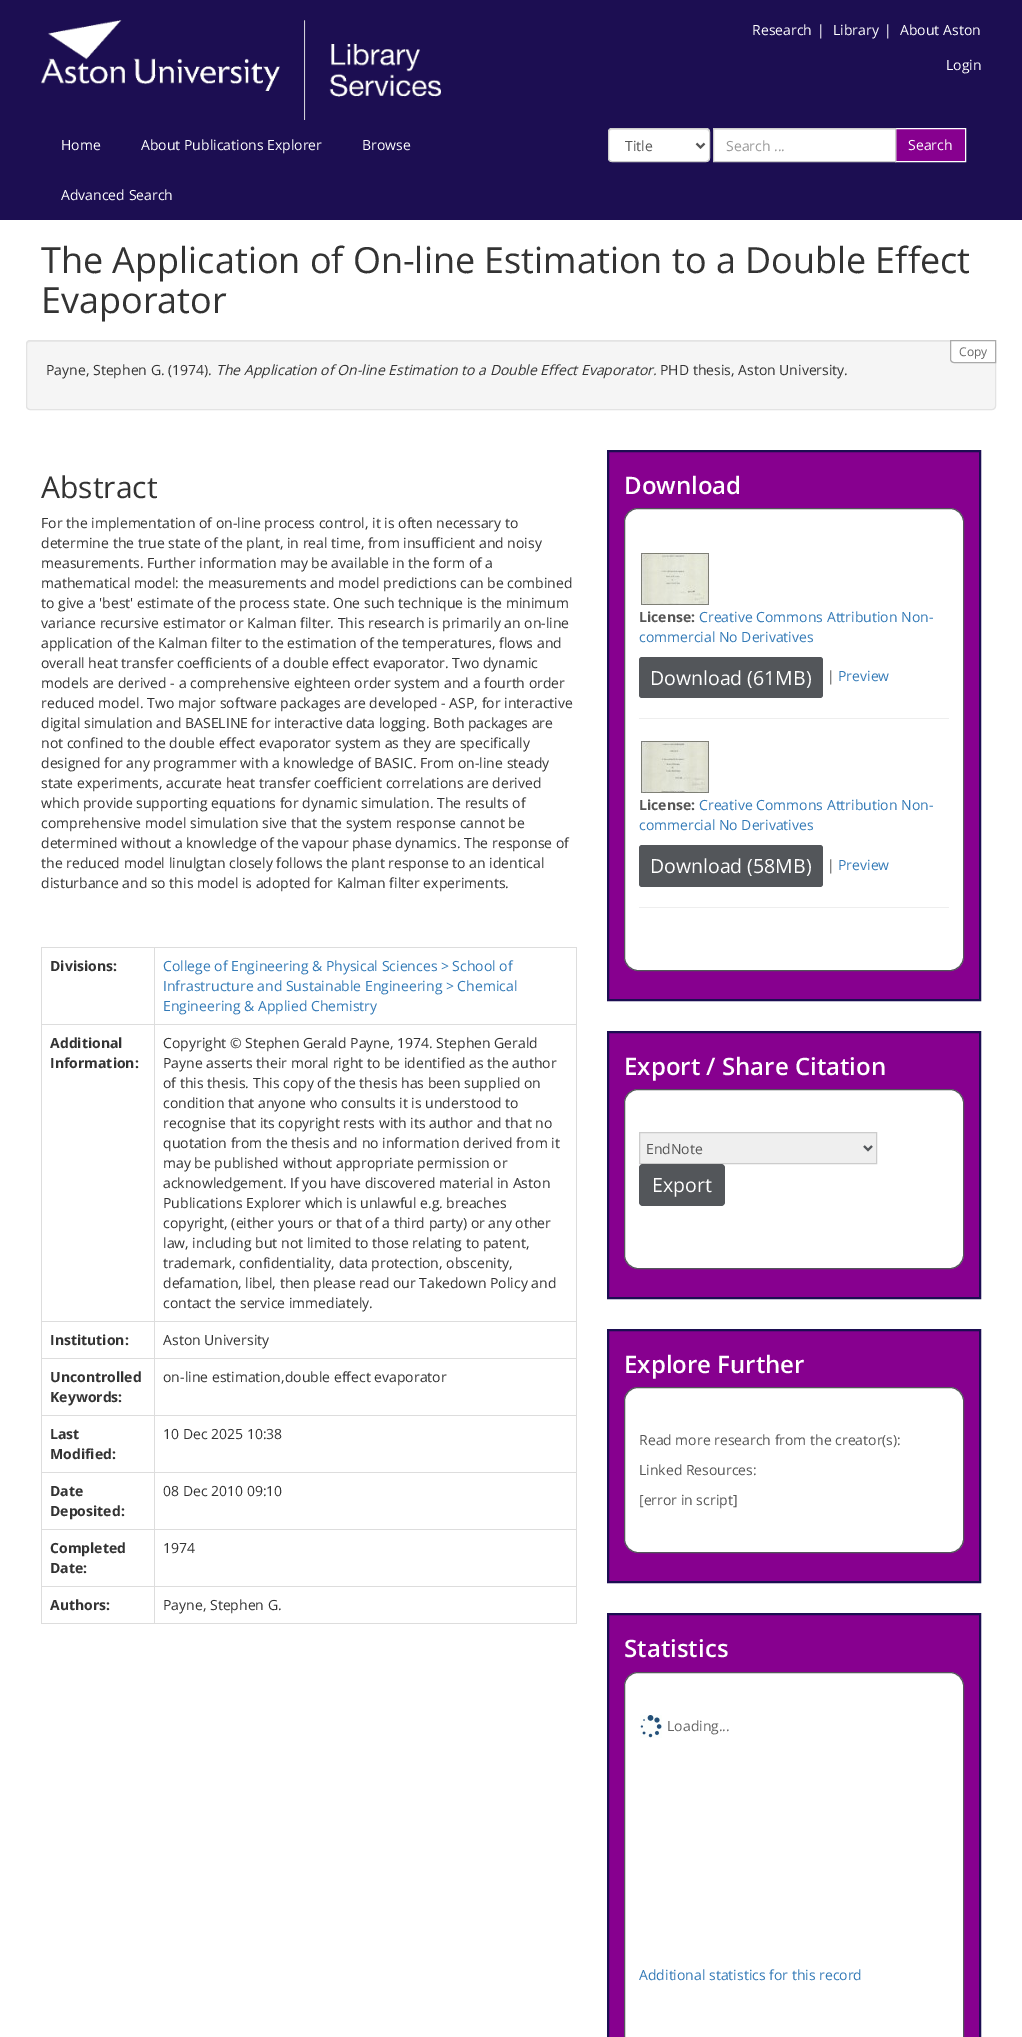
%!PS
<< /PageSize [1022 2037] >> setpagedevice
/mt/moveto load def
/li/lineto load def
/ct/curveto load def
/cp/closepath load def
/fl/fill load def
/st/stroke load def
/gs/gsave load def
/gr/grestore load def
/lw/setlinewidth load def
/co { dup -16 bitshift 255 div exch dup -8 bitshift 255 and 255 div exch 255 and 255 div setrgbcolor } def
/fn { [ exch dup neg 0 0 3 -1 roll 0 0 ] selectfont } def
/tx { co fn moveto show } def
/bx { co rectfill } def
/rr { 5 dict begin { /r /h /w /y /x } { exch def } forall
  x r add y moveto x w add y 2 copy h add r arct x w add y h add x 1 index r arct
  x y h add x y r arct x y 2 copy exch w add exch r arct closepath end } def
/im { 5 dict begin { /h /w /y /x /name } { exch def } forall
  gsave x y translate w h scale
  w h 8 [w 0 0 h 0 0] name (r) file false 3 colorimage grestore end } def
0 2037 translate 1 -1 scale
4 setmiterlimit
0 0 1022 2037 16#FFFFFF bx
0 0 1022 220 16#1C0E52 bx
(media/1.raw) 41 20 400 100 im
16#FFFFFF co
608 128 102 34 4 rr fl
16#ECECEC co
612 130 mt 706 130 li 708 130 709 131 709 133 ct 709 125 693 129 690 129 ct 628 129 li 625 129 609 125 609 133 ct 609 131 610 130 612 130 ct cp fl
16#CCCCCC co
608.5 128.5 101 33 3.5 rr st
16#555555 co
2 lw
696.5 143.5 mt 700.5 147.5 li 704.5 143.5 li st
714 130 181 31 16#FFFFFF bx
714 129 181 1 16#ECECEC bx
16#87008F co
895.5 128.5 mt 965.5 128.5 li 965.5 161.5 li 895.5 161.5 li cp gs fl gr
16#FFFFFF co
1 lw
st
16#CCCCCC co
713.5 128.5 182 33 rectstroke
16#F5F5F5 co
26 340 970 70 4 rr fl
16#E9E9E9 co
30 342 mt 992 342 li 994 342 995 343 995 345 ct 995 343 994 341 992 341 ct 30 341 li 28 341 27 343 27 345 ct 27 343 28 342 30 342 ct cp fl
16#E3E3E3 co
26.5 340.5 969 69 3.5 rr st
16#FFFFFF co
950.5 340.5 mt 995.5 340.5 li 995.5 362.5 li 954 362.5 li 952 362.5 950.5 361 950.5 359 ct cp gs fl gr
16#AAAAAA co
st
41 947 536 1 16#DDDDDD bx
576 947 1 677 16#DDDDDD bx
41 1623 536 1 16#DDDDDD bx
41 947 1 677 16#DDDDDD bx
154 1024 423 1 16#DDDDDD bx
154 1321 423 1 16#DDDDDD bx
154 1358 423 1 16#DDDDDD bx
154 1415 423 1 16#DDDDDD bx
154 1472 423 1 16#DDDDDD bx
154 1529 423 1 16#DDDDDD bx
154 1586 423 1 16#DDDDDD bx
154 1586 1 38 16#DDDDDD bx
41 1586 114 1 16#DDDDDD bx
154 1529 1 58 16#DDDDDD bx
41 1529 114 1 16#DDDDDD bx
154 1472 1 58 16#DDDDDD bx
41 1472 114 1 16#DDDDDD bx
154 1415 1 58 16#DDDDDD bx
41 1415 114 1 16#DDDDDD bx
154 1358 1 58 16#DDDDDD bx
41 1358 114 1 16#DDDDDD bx
154 1321 1 38 16#DDDDDD bx
41 1321 114 1 16#DDDDDD bx
154 1024 1 298 16#DDDDDD bx
41 1024 114 1 16#DDDDDD bx
154 947 1 78 16#DDDDDD bx
16#87008F co
608 451 mt 980 451 li 980 1000 li 608 1000 li cp gs fl gr
16#1C0E52 co
2 lw
st
16#FFFFFF co
624.5 508.5 339 462 13.5 rr gs fl gr
16#53565A co
1 lw
st
(media/2.raw) 641 553 68 52 im
639 657 184 41 3 rr fl
639 718 310 1 16#EEEEEE bx
(media/3.raw) 641 741 68 52 im
16#53565A co
639 845 184 42 3 rr fl
639 907 310 1 16#EEEEEE bx
16#87008F co
608 1032 mt 980 1032 li 980 1298 li 608 1298 li cp gs fl gr
16#1C0E52 co
2 lw
st
16#FFFFFF co
624.5 1089.5 339 179 13.5 rr gs fl gr
16#53565A co
1 lw
st
16#EFEFEF co
639.5 1132.5 mt 876.5 1132.5 li 876.5 1163.5 li 639.5 1163.5 li cp gs fl gr
16#CCCCCC co
st
16#53565A co
2 lw
864 1146 mt 868 1150 li 872 1146 li st
639 1164 86 42 4 rr fl
16#87008F co
608 1330 mt 980 1330 li 980 1582 li 608 1582 li cp gs fl gr
16#1C0E52 co
st
16#FFFFFF co
624.5 1387.5 339 165 13.5 rr gs fl gr
16#53565A co
1 lw
st
16#87008F co
608 1614 mt 980 1614 li 980 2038 li 608 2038 li cp gs fl gr
16#1C0E52 co
2 lw
st
16#FFFFFF co
624.5 1672.5 339 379 13.5 rr gs fl gr
16#53565A co
1 lw
st
(media/4.raw) 640 1715 22 23 im
(Research) 752 35 /OpenSans-Regular 14 16#FFFFFF tx
(|) 817 35 /OpenSans-Regular 14 16#FFFFFF tx
(Library) 833 35 /OpenSans-Regular 14 16#FFFFFF tx
(|) 884 35 /OpenSans-Regular 14 16#FFFFFF tx
(About Aston) 900 35 /OpenSans-Regular 14 16#FFFFFF tx
(Login) 946 70 /OpenSans-Regular 14 16#FFFFFF tx
(Home) 61 150 /OpenSans-Regular 14 16#FFFFFF tx
(About Publications Explorer) 141 150 /OpenSans-Regular 14 16#FFFFFF tx
(Browse) 362 150 /OpenSans-Regular 14 16#FFFFFF tx
(Advanced Search) 61 200 /OpenSans-Regular 14 16#FFFFFF tx
(Title) 625 151 /OpenSans-Regular 14 16#555555 tx
(Search ...) 726 151 /OpenSans-Regular 14 16#999999 tx
(Search) 908 150 /OpenSans-Regular 14 16#FFFFFF tx
(The Application of On-line Estimation to a Double Effect) 41 273 /OpenSans-Regular 36 16#333333 tx
(Evaporator) 41 313 /OpenSans-Regular 36 16#333333 tx
(Copy) 959 356 /OpenSans-Regular 12 16#666666 tx
(Payne, Stephen G. \(1974\).) 46 375 /OpenSans-Regular 14 16#333333 tx
(The Application of On-line Estimation to a Double Effect Evaporator.) 216 375 /OpenSans-Italic 14 16#333333 tx
(PHD thesis, Aston University.) 660 375 /OpenSans-Regular 14 16#333333 tx
(Abstract) 41 498 /OpenSans-Regular 30 16#333333 tx
(For the implementation of on-line process control, it is often necessary to) 41 528 /OpenSans-Regular 14 16#333333 tx
(determine the true state of the plant, in real time, from insufficient and noisy) 41 548 /OpenSans-Regular 14 16#333333 tx
(measurements. Further information may be available in the form of a) 41 568 /OpenSans-Regular 14 16#333333 tx
(mathematical model: the measurements and model predictions can be combined) 41 588 /OpenSans-Regular 14 16#333333 tx
(to give a 'best' estimate of the process state. One such technique is the minimum) 41 608 /OpenSans-Regular 14 16#333333 tx
(variance recursive estimator or Kalman filter. This research is primarily an on-line) 41 628 /OpenSans-Regular 14 16#333333 tx
(application of the Kalman filter to the estimation of the temperatures, flows and) 41 648 /OpenSans-Regular 14 16#333333 tx
(overall heat transfer coefficients of a double effect evaporator. Two dynamic) 41 668 /OpenSans-Regular 14 16#333333 tx
(models are derived - a comprehensive eighteen order system and a fourth order) 41 688 /OpenSans-Regular 14 16#333333 tx
(reduced model. Two major software packages are developed - ASP, for interactive) 41 708 /OpenSans-Regular 14 16#333333 tx
(digital simulation and BASELINE for interactive data logging. Both packages are) 41 728 /OpenSans-Regular 14 16#333333 tx
(not confined to the double effect evaporator system as they are specifically) 41 748 /OpenSans-Regular 14 16#333333 tx
(designed for any programmer with a knowledge of BASIC. From on-line steady) 41 768 /OpenSans-Regular 14 16#333333 tx
(state experiments, accurate heat transfer coefficient correlations are derived) 41 788 /OpenSans-Regular 14 16#333333 tx
(which provide supporting equations for dynamic simulation. The results of) 41 808 /OpenSans-Regular 14 16#333333 tx
(comprehensive model simulation sive that the system response cannot be) 41 828 /OpenSans-Regular 14 16#333333 tx
(determined without a knowledge of the vapour phase dynamics. The response of) 41 848 /OpenSans-Regular 14 16#333333 tx
(the reduced model linulgtan closely follows the plant response to an identical) 41 868 /OpenSans-Regular 14 16#333333 tx
(disturbance and so this model is adopted for Kalman filter experiments.) 41 888 /OpenSans-Regular 14 16#333333 tx
(Divisions:) 50 971 /OpenSans-Bold 14 16#333333 tx
(College of Engineering & Physical Sciences > School of) 163 971 /OpenSans-Regular 14 16#337AB7 tx
(Infrastructure and Sustainable Engineering > Chemical) 163 991 /OpenSans-Regular 14 16#337AB7 tx
(Engineering & Applied Chemistry) 163 1011 /OpenSans-Regular 14 16#337AB7 tx
(Additional) 50 1048 /OpenSans-Bold 14 16#333333 tx
(Information:) 50 1068 /OpenSans-Bold 14 16#333333 tx
(Copyright © Stephen Gerald Payne, 1974. Stephen Gerald) 163 1048 /OpenSans-Regular 14 16#333333 tx
(Payne asserts their moral right to be identified as the author) 163 1068 /OpenSans-Regular 14 16#333333 tx
(of this thesis. This copy of the thesis has been supplied on) 163 1088 /OpenSans-Regular 14 16#333333 tx
(condition that anyone who consults it is understood to) 163 1108 /OpenSans-Regular 14 16#333333 tx
(recognise that its copyright rests with its author and that no) 163 1128 /OpenSans-Regular 14 16#333333 tx
(quotation from the thesis and no information derived from it) 163 1148 /OpenSans-Regular 14 16#333333 tx
(may be published without appropriate permission or) 163 1168 /OpenSans-Regular 14 16#333333 tx
(acknowledgement. If you have discovered material in Aston) 163 1188 /OpenSans-Regular 14 16#333333 tx
(Publications Explorer which is unlawful e.g. breaches) 163 1208 /OpenSans-Regular 14 16#333333 tx
(copyright, \(either yours or that of a third party\) or any other) 163 1228 /OpenSans-Regular 14 16#333333 tx
(law, including but not limited to those relating to patent,) 163 1248 /OpenSans-Regular 14 16#333333 tx
(trademark, confidentiality, data protection, obscenity,) 163 1268 /OpenSans-Regular 14 16#333333 tx
(defamation, libel, then please read our Takedown Policy and) 163 1288 /OpenSans-Regular 14 16#333333 tx
(contact the service immediately.) 163 1308 /OpenSans-Regular 14 16#333333 tx
(Institution:) 50 1345 /OpenSans-Bold 14 16#333333 tx
(Aston University) 163 1345 /OpenSans-Regular 14 16#333333 tx
(Uncontrolled) 50 1382 /OpenSans-Bold 14 16#333333 tx
(Keywords:) 50 1402 /OpenSans-Bold 14 16#333333 tx
(on-line estimation,double effect evaporator) 163 1382 /OpenSans-Regular 14 16#333333 tx
(Last) 50 1439 /OpenSans-Bold 14 16#333333 tx
(Modified:) 50 1459 /OpenSans-Bold 14 16#333333 tx
(10 Dec 2025 10:38) 163 1439 /OpenSans-Regular 14 16#333333 tx
(Date) 50 1496 /OpenSans-Bold 14 16#333333 tx
(Deposited:) 50 1516 /OpenSans-Bold 14 16#333333 tx
(08 Dec 2010 09:10) 163 1496 /OpenSans-Regular 14 16#333333 tx
(Completed) 50 1553 /OpenSans-Bold 14 16#333333 tx
(Date:) 50 1573 /OpenSans-Bold 14 16#333333 tx
(1974) 163 1553 /OpenSans-Regular 14 16#333333 tx
(Authors:) 50 1610 /OpenSans-Bold 14 16#333333 tx
(Payne, Stephen G.) 163 1610 /OpenSans-Regular 14 16#333333 tx
(Download) 624 494 /OpenSans-SemiBold 24 16#FFFFFF tx
(License:) 639 622 /OpenSans-Bold 14 16#555555 tx
(Creative Commons Attribution Non-) 699 622 /OpenSans-Regular 14 16#337AB7 tx
(commercial No Derivatives) 639 642 /OpenSans-Regular 14 16#337AB7 tx
(Download \(61MB\)) 650 685 /OpenSans-Regular 19.5 16#FFFFFF tx
(|) 827 681 /OpenSans-Regular 14 16#555555 tx
(Preview) 838 681 /OpenSans-Regular 14 16#337AB7 tx
(License:) 639 810 /OpenSans-Bold 14 16#555555 tx
(Creative Commons Attribution Non-) 699 810 /OpenSans-Regular 14 16#337AB7 tx
(commercial No Derivatives) 639 830 /OpenSans-Regular 14 16#337AB7 tx
(Download \(58MB\)) 650 873 /OpenSans-Regular 19.5 16#FFFFFF tx
(|) 827 870 /OpenSans-Regular 14 16#555555 tx
(Preview) 838 870 /OpenSans-Regular 14 16#337AB7 tx
(Export / Share Citation) 624 1075 /OpenSans-SemiBold 24 16#FFFFFF tx
(EndNote) 646 1154 /OpenSans-Regular 14 16#555555 tx
(Export) 652 1192 /OpenSans-Regular 19.5 16#FFFFFF tx
(Explore Further) 624 1373 /OpenSans-SemiBold 24 16#FFFFFF tx
(Read more research from the creator\(s\):) 639 1445 /OpenSans-Regular 14 16#555555 tx
(Linked Resources:) 639 1475 /OpenSans-Regular 14 16#555555 tx
([error in script]) 639 1505 /OpenSans-Regular 14 16#555555 tx
(Statistics) 624 1657 /OpenSans-SemiBold 24 16#FFFFFF tx
(Loading...) 667 1731 /OpenSans-Regular 14 16#666666 tx
(Additional statistics for this record) 639 1980 /OpenSans-Regular 14 16#337AB7 tx
showpage
